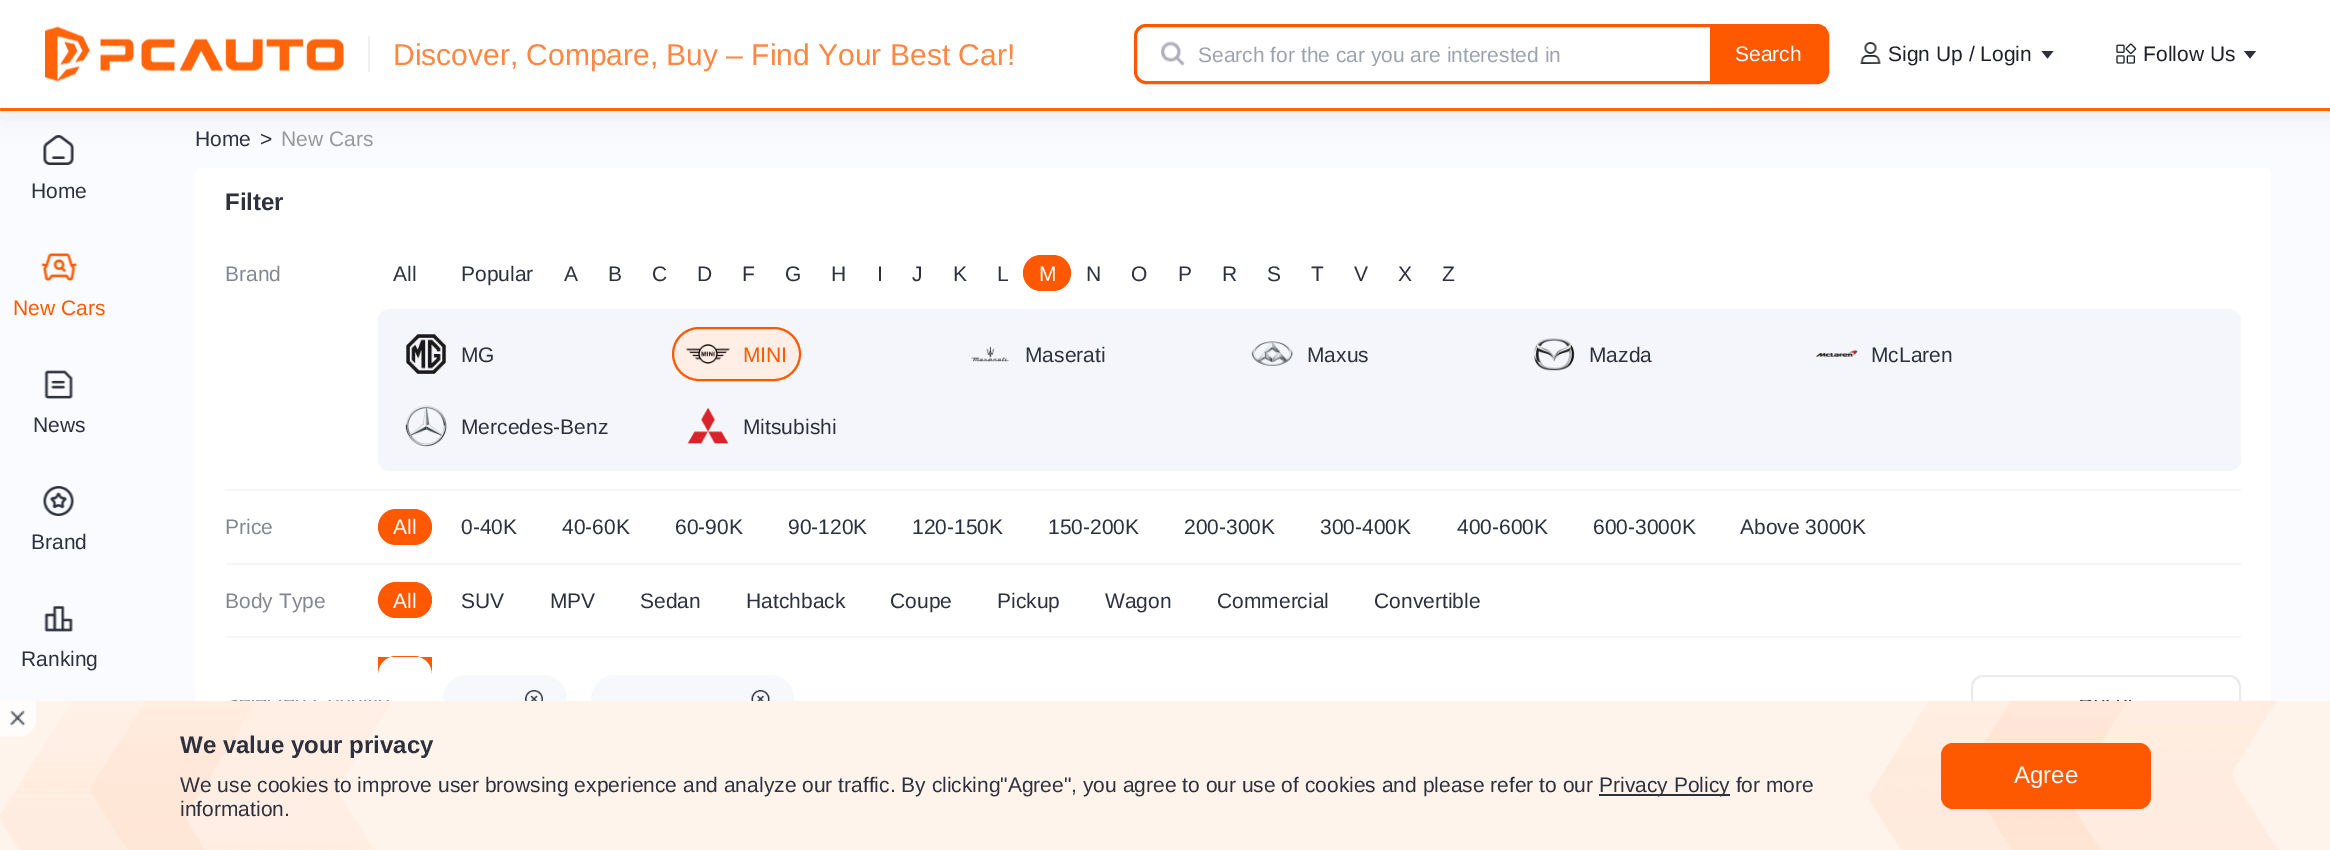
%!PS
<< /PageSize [2330 850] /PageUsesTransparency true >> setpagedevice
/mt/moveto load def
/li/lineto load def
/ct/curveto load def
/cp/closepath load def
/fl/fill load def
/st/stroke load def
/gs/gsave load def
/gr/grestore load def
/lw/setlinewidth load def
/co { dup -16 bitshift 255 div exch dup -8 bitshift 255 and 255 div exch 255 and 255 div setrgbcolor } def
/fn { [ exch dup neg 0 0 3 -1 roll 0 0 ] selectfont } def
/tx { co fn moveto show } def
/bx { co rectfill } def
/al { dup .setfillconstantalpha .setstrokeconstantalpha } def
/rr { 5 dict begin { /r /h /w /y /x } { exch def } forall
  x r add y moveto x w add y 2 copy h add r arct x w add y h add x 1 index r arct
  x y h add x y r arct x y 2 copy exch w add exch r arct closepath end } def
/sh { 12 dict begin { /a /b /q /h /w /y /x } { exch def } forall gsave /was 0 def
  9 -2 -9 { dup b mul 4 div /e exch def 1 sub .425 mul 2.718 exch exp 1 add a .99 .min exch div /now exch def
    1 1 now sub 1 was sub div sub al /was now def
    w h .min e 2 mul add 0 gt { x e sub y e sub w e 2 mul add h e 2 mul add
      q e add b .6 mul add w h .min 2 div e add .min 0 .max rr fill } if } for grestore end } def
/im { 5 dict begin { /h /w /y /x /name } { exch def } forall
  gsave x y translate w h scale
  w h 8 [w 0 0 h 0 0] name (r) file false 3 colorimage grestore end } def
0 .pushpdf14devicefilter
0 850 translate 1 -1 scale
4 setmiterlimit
0 0 2330 850 16#FAFBFF bx
(media/5.raw) 43 135 31 30 im
16#000000 co
0 2 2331 108 0 15 .1 sh
0 0 2330 108 16#FFFFFF bx
(media/1.raw) 45 26 299 56 im
368 36 2 36 16#F0F0F0 bx
16#FE5900 co
3 lw
1135.5 25.5 692 57 10.5 rr st
(media/2.raw) 1161 41 24 25 im
1710 27 116 54 16#FE5900 bx
(media/3.raw) 1860 42 21 22 im
16#2D313E co
2041.5 51 mt 2053.5 51 li 2047.5 58.5 li cp fl
(media/4.raw) 2116 43 21 21 im
2244 51 mt 2256 51 li 2250 58.5 li cp fl
16#FF6400 co
0 108 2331 3 1.5 rr fl
(media/6.raw) 41 253 36 28 im
(media/7.raw) 44 370 30 29 im
(media/8.raw) 43 486 31 30 im
(media/9.raw) 44 606 29 26 im
16#FFFFFF co
195 168 2076 573 6 rr fl
225 489 2016 2 16#F4F6F9 bx
16#FE5900 co
1023 255 48 36 18 rr fl
16#F5F6FB co
378 309 1863 162 12 rr fl
(media/10.raw) 406 334 40 40 im
16#FFEEE5 co
673 328 127 52 26 rr gs fl gr
16#FE5900 co
2 lw
st
(media/11.raw) 686 344 44 20 im
(media/12.raw) 971 346 38 16 im
(media/13.raw) 1251 340 42 26 im
(media/14.raw) 1533 338 42 33 im
(media/15.raw) 1815 350 43 7 im
(media/16.raw) 405 405 42 42 im
(media/17.raw) 687 408 42 36 im
225 563 2016 2 16#F4F6F9 bx
16#FE5900 co
378 509 54 36 18 rr fl
225 636 2016 2 16#F4F6F9 bx
16#FE5900 co
378 582 54 36 18 rr fl
396 656 mt 414 656 li 424 656 432 664 432 674 ct 432 657 li 378 657 li 378 674 li 378 664 386 656 396 656 ct cp fl
16#F7F8FB co
443 675 124 48 24 rr fl
(media/18.raw) 525 690 18 11 im
591 675 203 48 24 rr fl
(media/19.raw) 751 690 19 11 im
16#EBEBEB co
1972 676 268 46 11 rr st
0 701 2330 149 16#FFF4EC bx
(media/20.raw) 0 700 391 150 im
(media/21.raw) 1869 700 410 150 im
(media/22.raw) 0 701 36 36 im
1599 794 131 2 16#2D313E bx
16#FE5900 co
1941 743 210 66 12 rr fl
(Discover, Compare, Buy – Find Your Best Car!) 393 65 /LiberationSans-Regular 30 16#FF8741 tx
gs
1197 42 513 24 rectclip
(Search for the car you are interested in) 1198 62 /LiberationSans-Regular 21 16#9CA3AF tx
gr
(Search) 1735 61 /LiberationSans-Regular 21 16#FFFFFF tx
(Sign Up / Login) 1888 61 /LiberationSans-Regular 21 16#1F2129 tx
(Follow Us) 2143 61 /LiberationSans-Regular 21 16#1F2129 tx
(Home) 31 198 /LiberationSans-Regular 21 16#2D313E tx
(New Cars) 13 315 /LiberationSans-Regular 21 16#FE5900 tx
(News) 33 432 /LiberationSans-Regular 21 16#2D313E tx
(Brand) 31 549 /LiberationSans-Regular 21 16#2D313E tx
(Ranking) 21 666 /LiberationSans-Regular 21 16#2D313E tx
(Home) 195 146 /LiberationSans-Regular 21 16#2D313E tx
(>) 260 146 /LiberationSans-Regular 21 16#2D313E tx
(New Cars) 281 146 /LiberationSans-Regular 21 16#999999 tx
(Filter) 225 210 /LiberationSans-Bold 24 16#2D313E tx
(Brand) 225 281 /LiberationSans-Regular 21 16#848792 tx
(All) 393 281 /LiberationSans-Regular 21 16#2D313E tx
(Popular) 461 281 /LiberationSans-Regular 21 16#2D313E tx
(A) 564 281 /LiberationSans-Regular 21 16#2D313E tx
(B) 608 281 /LiberationSans-Regular 21 16#2D313E tx
(C) 652 281 /LiberationSans-Regular 21 16#2D313E tx
(D) 697 281 /LiberationSans-Regular 21 16#2D313E tx
(F) 742 281 /LiberationSans-Regular 21 16#2D313E tx
(G) 785 281 /LiberationSans-Regular 21 16#2D313E tx
(H) 831 281 /LiberationSans-Regular 21 16#2D313E tx
(I) 877 281 /LiberationSans-Regular 21 16#2D313E tx
(J) 912 281 /LiberationSans-Regular 21 16#2D313E tx
(K) 953 281 /LiberationSans-Regular 21 16#2D313E tx
(L) 997 281 /LiberationSans-Regular 21 16#2D313E tx
(M) 1039 281 /LiberationSans-Regular 21 16#FFFFFF tx
(N) 1086 281 /LiberationSans-Regular 21 16#2D313E tx
(O) 1131 281 /LiberationSans-Regular 21 16#2D313E tx
(P) 1178 281 /LiberationSans-Regular 21 16#2D313E tx
(R) 1222 281 /LiberationSans-Regular 21 16#2D313E tx
(S) 1267 281 /LiberationSans-Regular 21 16#2D313E tx
(T) 1311 281 /LiberationSans-Regular 21 16#2D313E tx
(V) 1354 281 /LiberationSans-Regular 21 16#2D313E tx
(X) 1398 281 /LiberationSans-Regular 21 16#2D313E tx
(Z) 1442 281 /LiberationSans-Regular 21 16#2D313E tx
(MG) 461 362 /LiberationSans-Regular 21 16#2D313E tx
(MINI) 743 362 /LiberationSans-Regular 21 16#FE5900 tx
(Maserati) 1025 362 /LiberationSans-Regular 21 16#2D313E tx
(Maxus) 1307 362 /LiberationSans-Regular 21 16#2D313E tx
(Mazda) 1589 362 /LiberationSans-Regular 21 16#2D313E tx
(McLaren) 1871 362 /LiberationSans-Regular 21 16#2D313E tx
(Mercedes-Benz) 461 434 /LiberationSans-Regular 21 16#2D313E tx
(Mitsubishi) 743 434 /LiberationSans-Regular 21 16#2D313E tx
(Price) 225 534 /LiberationSans-Regular 21 16#848792 tx
(All) 393 534 /LiberationSans-Regular 21 16#FFFFFF tx
(0-40K) 461 534 /LiberationSans-Regular 21 16#2D313E tx
(40-60K) 562 534 /LiberationSans-Regular 21 16#2D313E tx
(60-90K) 675 534 /LiberationSans-Regular 21 16#2D313E tx
(90-120K) 788 534 /LiberationSans-Regular 21 16#2D313E tx
(120-150K) 912 534 /LiberationSans-Regular 21 16#2D313E tx
(150-200K) 1048 534 /LiberationSans-Regular 21 16#2D313E tx
(200-300K) 1184 534 /LiberationSans-Regular 21 16#2D313E tx
(300-400K) 1320 534 /LiberationSans-Regular 21 16#2D313E tx
(400-600K) 1457 534 /LiberationSans-Regular 21 16#2D313E tx
(600-3000K) 1593 534 /LiberationSans-Regular 21 16#2D313E tx
(Above 3000K) 1740 534 /LiberationSans-Regular 21 16#2D313E tx
(Body Type) 225 608 /LiberationSans-Regular 21 16#848792 tx
(All) 393 608 /LiberationSans-Regular 21 16#FFFFFF tx
(SUV) 461 608 /LiberationSans-Regular 21 16#2D313E tx
(MPV) 550 608 /LiberationSans-Regular 21 16#2D313E tx
(Sedan) 640 608 /LiberationSans-Regular 21 16#2D313E tx
(Hatchback) 746 608 /LiberationSans-Regular 21 16#2D313E tx
(Coupe) 890 608 /LiberationSans-Regular 21 16#2D313E tx
(Pickup) 997 608 /LiberationSans-Regular 21 16#2D313E tx
(Wagon) 1105 608 /LiberationSans-Regular 21 16#2D313E tx
(Commercial) 1217 608 /LiberationSans-Regular 21 16#2D313E tx
(Convertible) 1374 608 /LiberationSans-Regular 21 16#2D313E tx
(We value your privacy) 180 753 /LiberationSans-Bold 24 16#2D313E tx
(We use cookies to improve user browsing experience and analyze our traffic. By clicking"Agree", you agree to our use of cookies and please refer to our) 180 792 /LiberationSans-Regular 21 16#2D313E tx
(Privacy Policy for more) 1599 792 /LiberationSans-Regular 21 16#2D313E tx
(information.) 180 816 /LiberationSans-Regular 21 16#2D313E tx
(Agree) 2014 783 /LiberationSans-Regular 24 16#FFFFFF tx
.poppdf14devicefilter showpage
